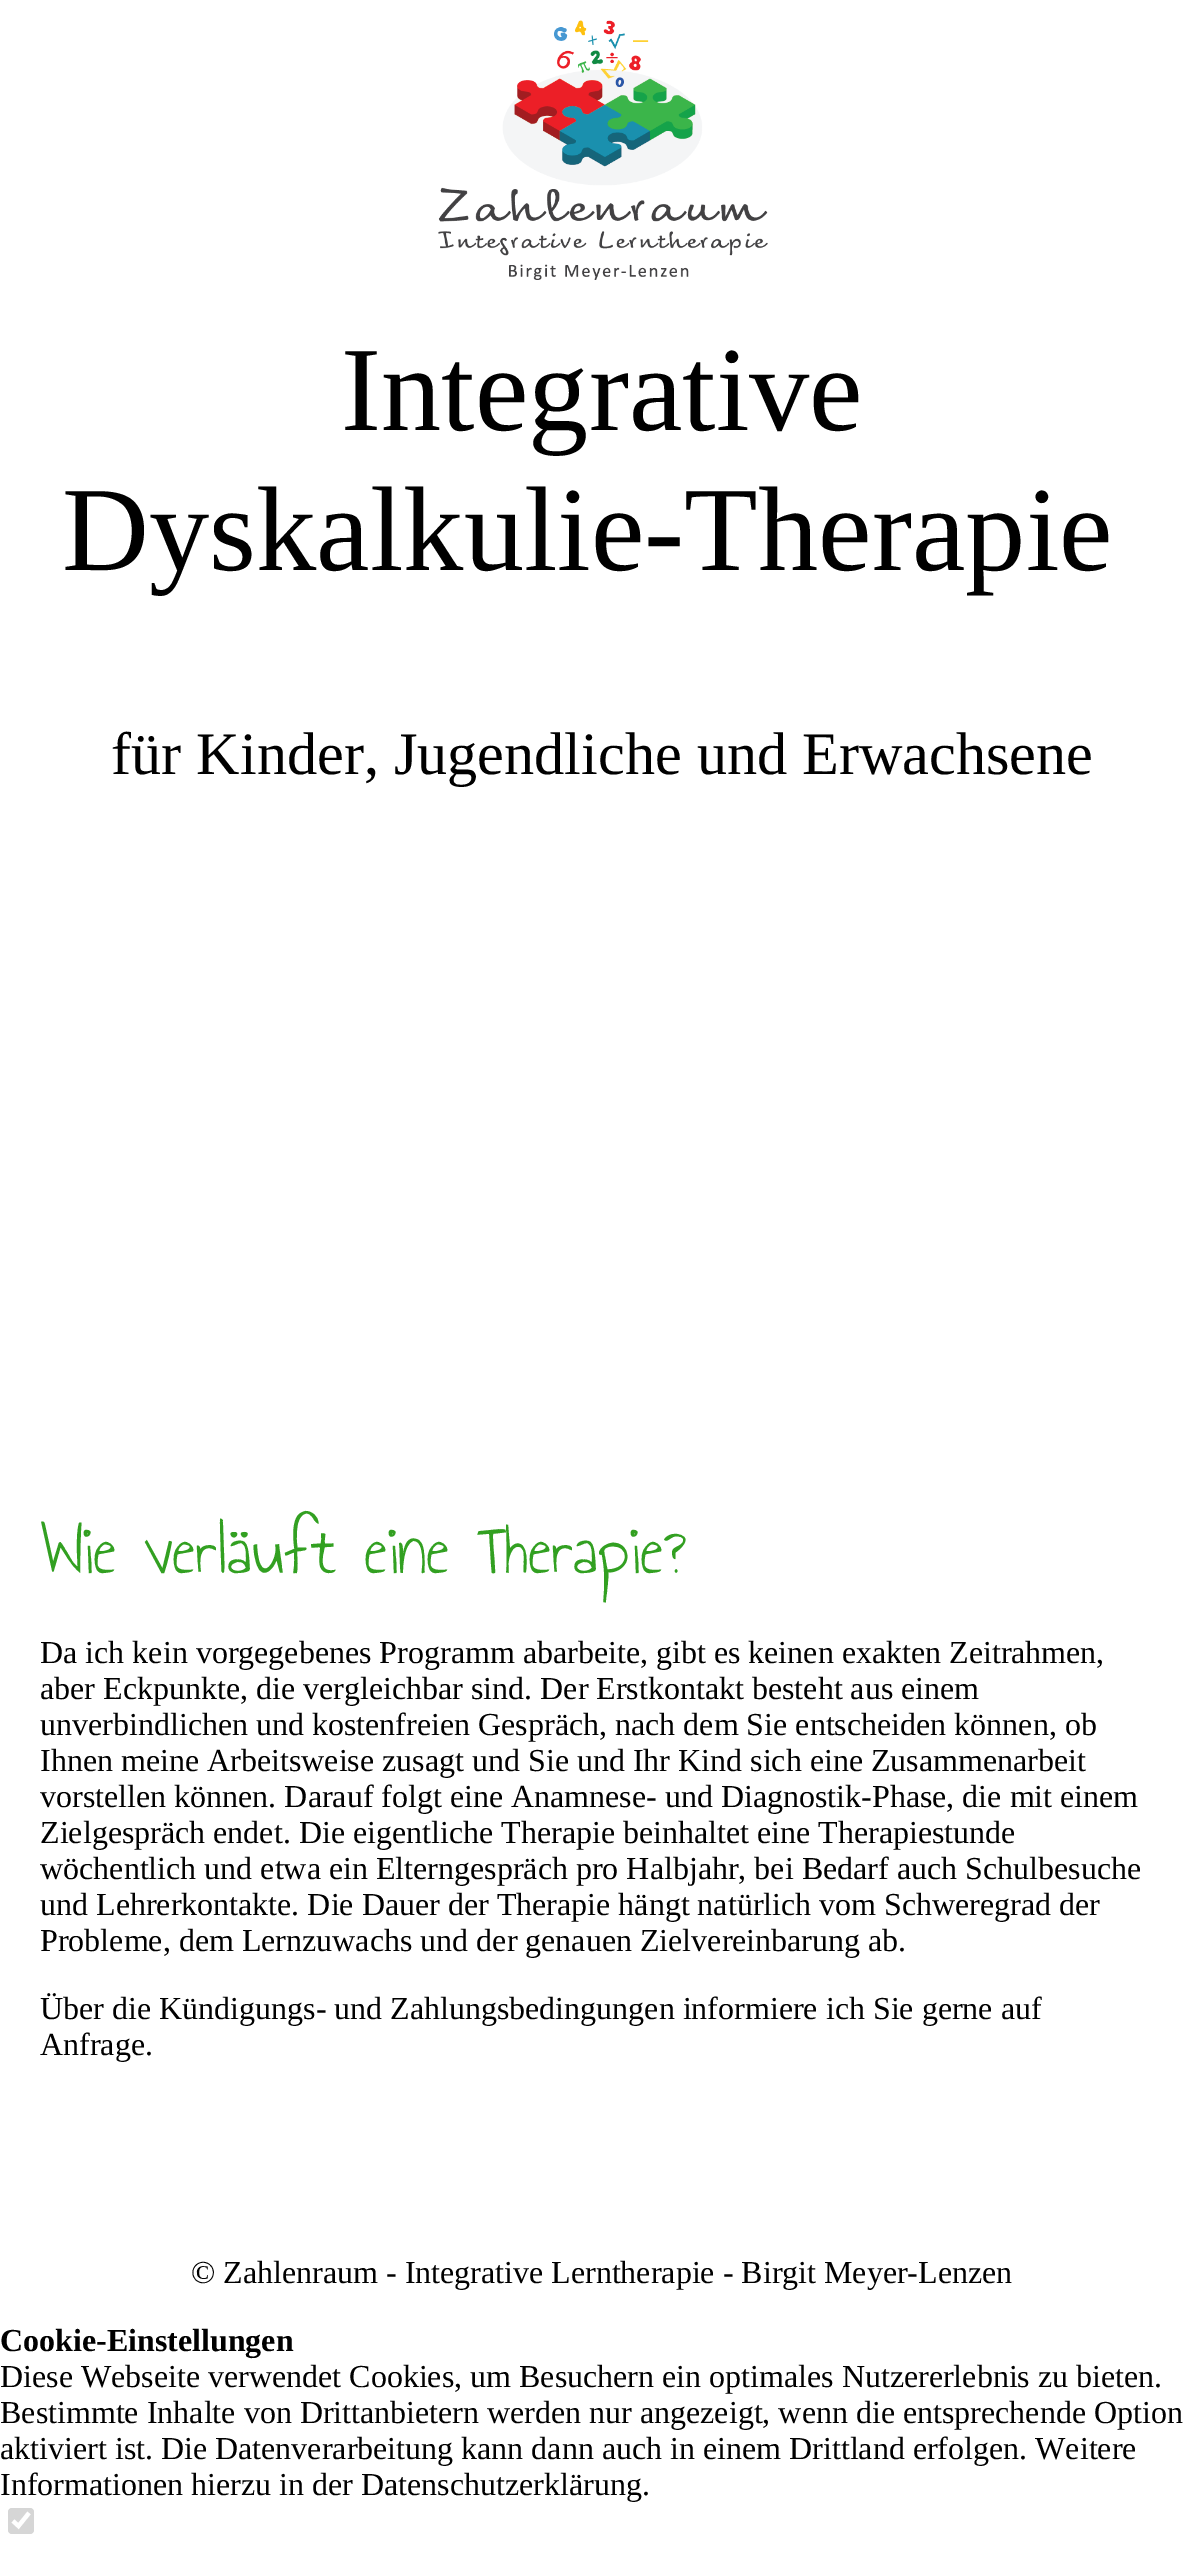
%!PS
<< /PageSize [1204 2562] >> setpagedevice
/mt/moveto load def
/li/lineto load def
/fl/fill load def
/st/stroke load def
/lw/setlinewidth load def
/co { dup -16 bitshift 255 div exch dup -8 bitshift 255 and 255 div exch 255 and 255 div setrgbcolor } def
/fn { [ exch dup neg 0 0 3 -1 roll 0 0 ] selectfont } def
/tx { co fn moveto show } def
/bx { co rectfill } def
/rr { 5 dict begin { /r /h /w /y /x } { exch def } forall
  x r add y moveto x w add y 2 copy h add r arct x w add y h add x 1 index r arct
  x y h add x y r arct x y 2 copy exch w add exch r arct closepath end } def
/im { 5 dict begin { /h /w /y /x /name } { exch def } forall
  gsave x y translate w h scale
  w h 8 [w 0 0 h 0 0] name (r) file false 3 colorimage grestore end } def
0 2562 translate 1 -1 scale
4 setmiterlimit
0 0 1204 2562 16#FFFFFF bx
(media/1.raw) 438 20 330 260 im
16#D6D6D6 co
8 2508 26 26 4 rr fl
16#FFFFFF co
4.2 lw
13 2521 mt 18.5 2526 li 29 2513 li st
(Integrative) 341 430 /LiberationSerif-Regular 120.5 16#000000 tx
(Dyskalkulie-Therapie) 62 570 /LiberationSerif-Regular 120.5 16#000000 tx
(für Kinder, Jugendliche und Erwachsene) 111 774 /LiberationSerif-Regular 60.25 16#000000 tx
(Wie verläuft eine Therapie?) 40 1573 /AnnieUseYourTelescope-Regular 72 16#32A021 tx
(Da ich kein vorgegebenes Programm abarbeite, gibt es keinen exakten Zeitrahmen,) 40 1663 /LiberationSerif-Regular 32 16#000000 tx
(aber Eckpunkte, die vergleichbar sind. Der Erstkontakt besteht aus einem) 40 1699 /LiberationSerif-Regular 32 16#000000 tx
(unverbindlichen und kostenfreien Gespräch, nach dem Sie entscheiden können, ob) 40 1735 /LiberationSerif-Regular 32 16#000000 tx
(Ihnen meine Arbeitsweise zusagt und Sie und Ihr Kind sich eine Zusammenarbeit) 40 1771 /LiberationSerif-Regular 32 16#000000 tx
(vorstellen können. Darauf folgt eine Anamnese- und Diagnostik-Phase, die mit einem) 40 1807 /LiberationSerif-Regular 32 16#000000 tx
(Zielgespräch endet. Die eigentliche Therapie beinhaltet eine Therapiestunde) 40 1843 /LiberationSerif-Regular 32 16#000000 tx
(wöchentlich und etwa ein Elterngespräch pro Halbjahr, bei Bedarf auch Schulbesuche) 40 1879 /LiberationSerif-Regular 32 16#000000 tx
(und Lehrerkontakte. Die Dauer der Therapie hängt natürlich vom Schweregrad der) 40 1915 /LiberationSerif-Regular 32 16#000000 tx
(Probleme, dem Lernzuwachs und der genauen Zielvereinbarung ab.) 40 1951 /LiberationSerif-Regular 32 16#000000 tx
(Über die Kündigungs- und Zahlungsbedingungen informiere ich Sie gerne auf) 40 2019 /LiberationSerif-Regular 32 16#000000 tx
(Anfrage.) 40 2055 /LiberationSerif-Regular 32 16#000000 tx
(© Zahlenraum - Integrative Lerntherapie - Birgit Meyer-Lenzen) 191 2283 /LiberationSerif-Regular 32 16#000000 tx
(Cookie-Einstellungen) 0 2351 /LiberationSerif-Bold 32 16#000000 tx
(Diese Webseite verwendet Cookies, um Besuchern ein optimales Nutzererlebnis zu bieten.) 0 2387 /LiberationSerif-Regular 32 16#000000 tx
(Bestimmte Inhalte von Drittanbietern werden nur angezeigt, wenn die entsprechende Option) 0 2423 /LiberationSerif-Regular 32 16#000000 tx
(aktiviert ist. Die Datenverarbeitung kann dann auch in einem Drittland erfolgen. Weitere) 0 2459 /LiberationSerif-Regular 32 16#000000 tx
(Informationen hierzu in der Datenschutzerklärung.) 0 2495 /LiberationSerif-Regular 32 16#000000 tx
showpage
